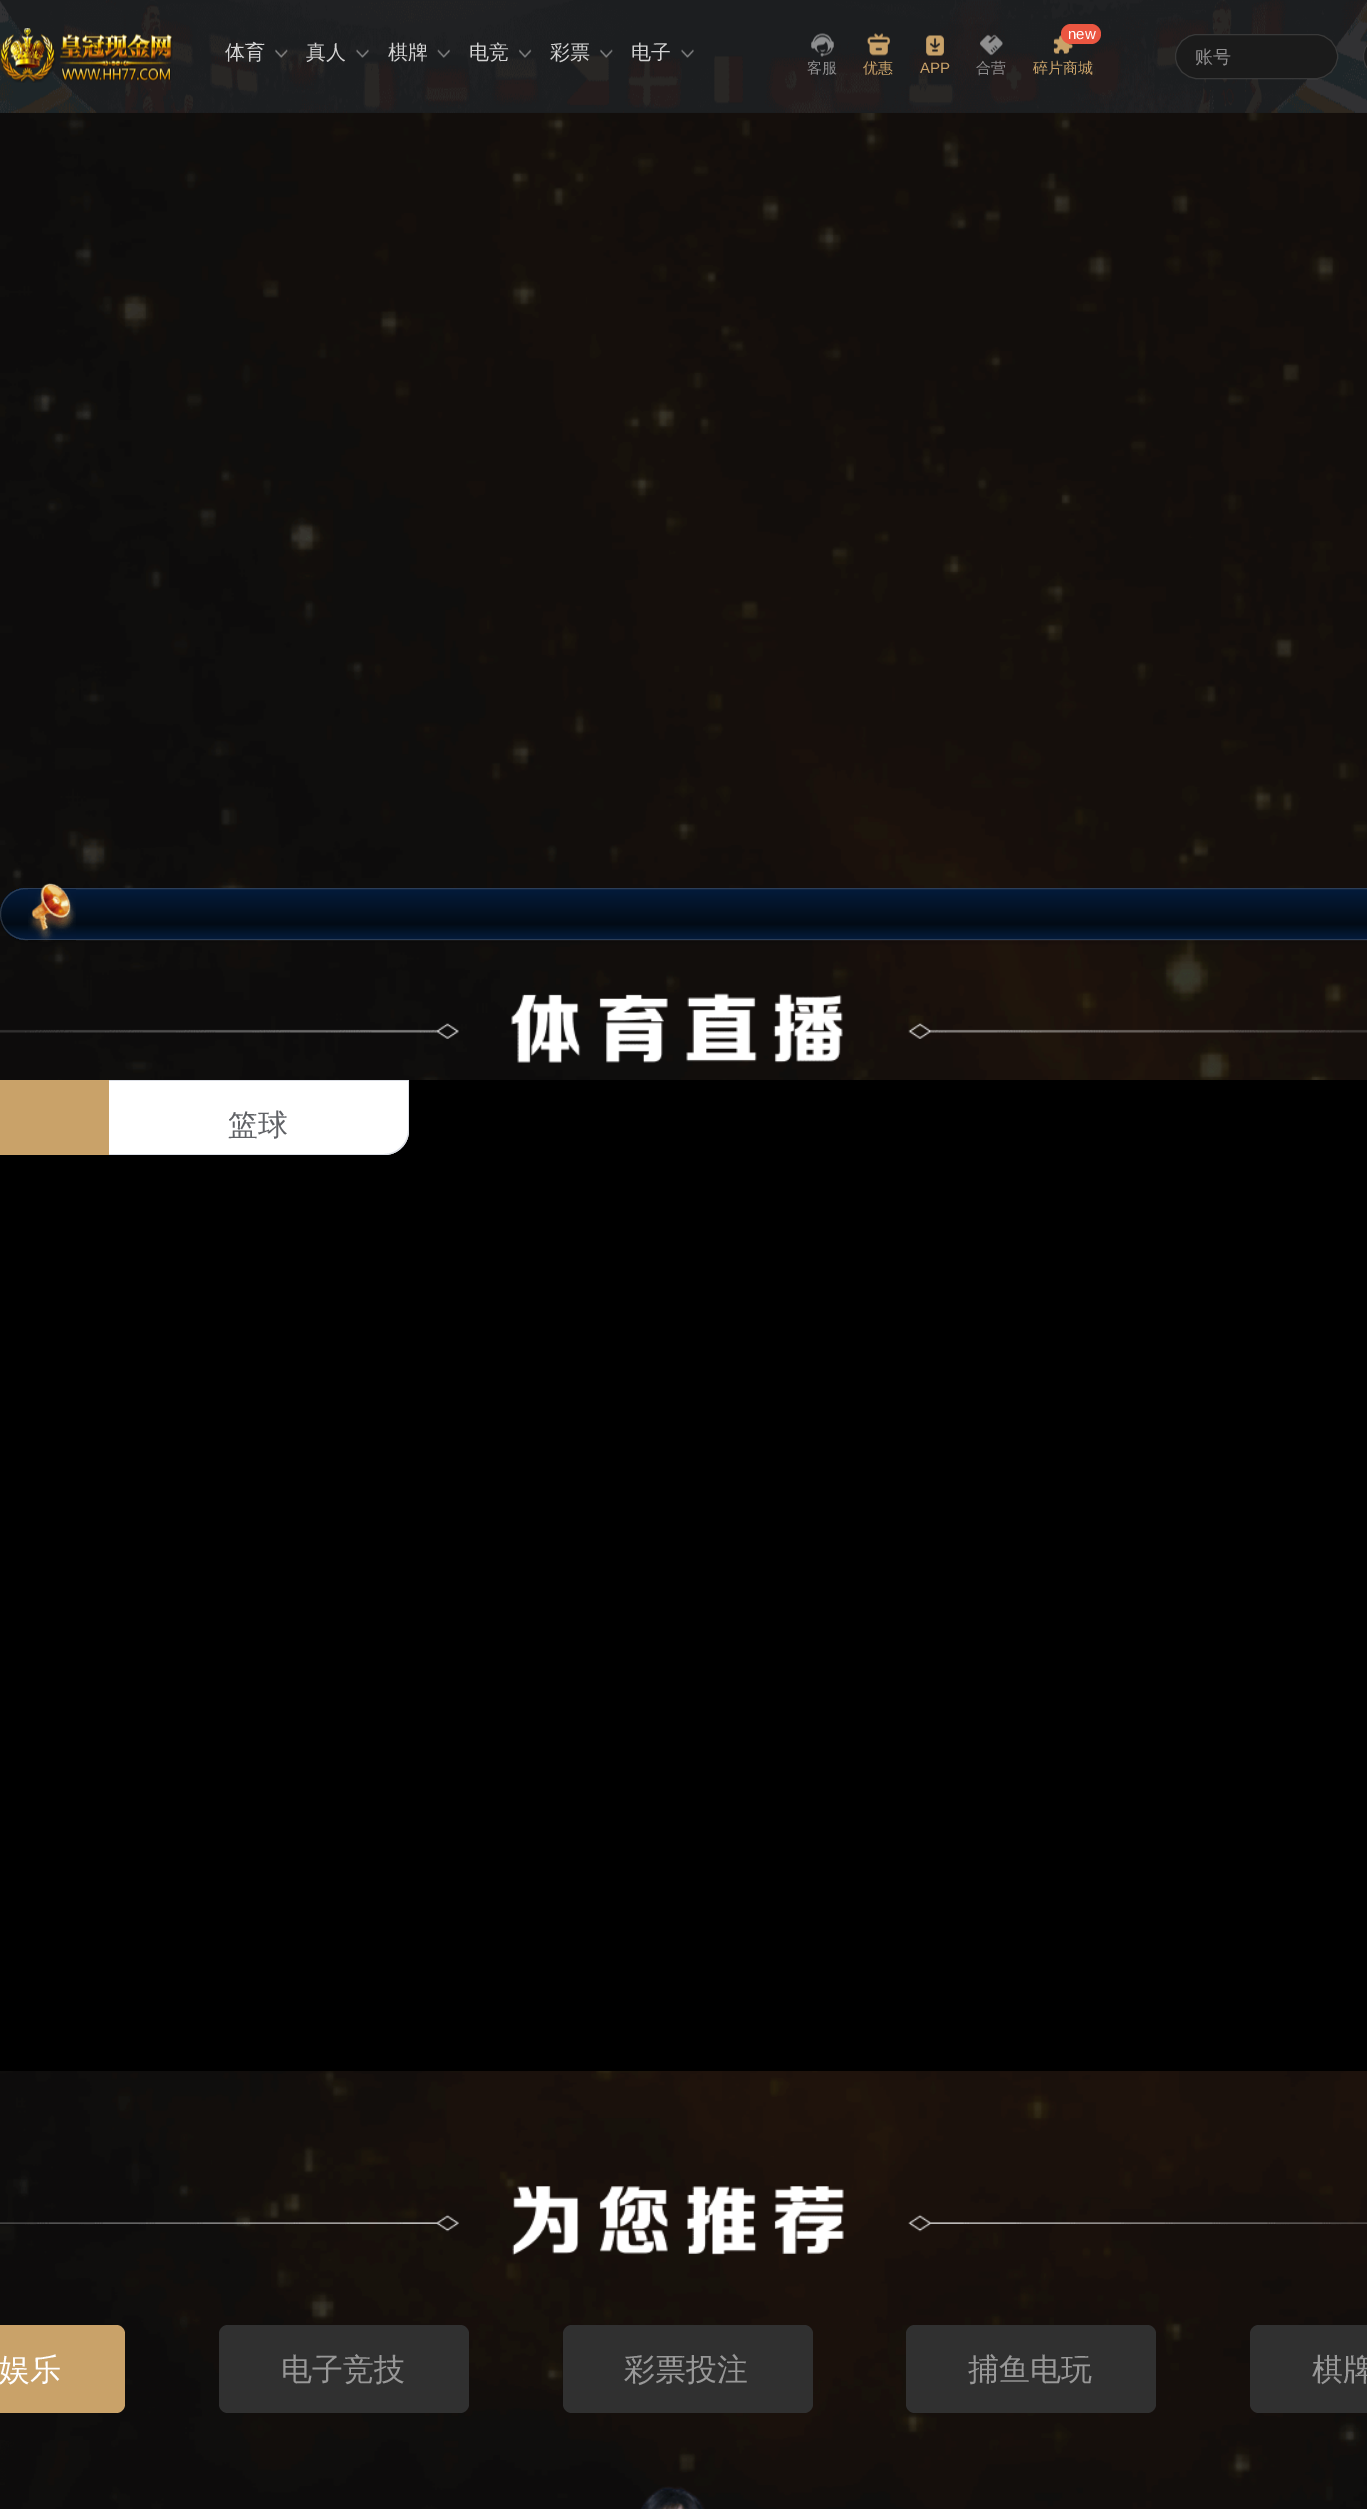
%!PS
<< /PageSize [1367 2509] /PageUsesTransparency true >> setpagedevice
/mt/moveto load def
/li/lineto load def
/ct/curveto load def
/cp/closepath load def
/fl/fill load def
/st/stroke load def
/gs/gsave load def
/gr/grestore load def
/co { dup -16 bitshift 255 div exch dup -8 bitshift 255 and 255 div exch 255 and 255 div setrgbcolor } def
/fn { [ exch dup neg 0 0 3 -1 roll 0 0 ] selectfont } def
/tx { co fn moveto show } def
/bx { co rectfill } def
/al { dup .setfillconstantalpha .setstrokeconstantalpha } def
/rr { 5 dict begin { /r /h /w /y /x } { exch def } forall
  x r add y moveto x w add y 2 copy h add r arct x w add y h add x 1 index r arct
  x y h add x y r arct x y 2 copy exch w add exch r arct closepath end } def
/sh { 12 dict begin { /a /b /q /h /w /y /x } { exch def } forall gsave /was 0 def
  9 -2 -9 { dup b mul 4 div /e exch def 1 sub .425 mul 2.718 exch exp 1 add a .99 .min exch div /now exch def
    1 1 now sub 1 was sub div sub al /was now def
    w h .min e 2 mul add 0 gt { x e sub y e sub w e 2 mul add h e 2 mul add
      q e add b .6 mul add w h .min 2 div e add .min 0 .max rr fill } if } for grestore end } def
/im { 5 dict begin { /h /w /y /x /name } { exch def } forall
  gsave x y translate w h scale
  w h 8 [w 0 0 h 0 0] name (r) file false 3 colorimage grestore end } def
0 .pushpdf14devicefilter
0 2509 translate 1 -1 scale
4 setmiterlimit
0 0 1367 2509 16#FFFFFF bx
0 0 1367 113 16#1B1B1B bx
(media/1.raw) 0 0 1367 113 im
(media/2.raw) 0 28 173 55 im
(media/3.raw) 275 49 13 9 im
(media/4.raw) 356 49 13 9 im
(media/5.raw) 437 49 13 9 im
(media/6.raw) 519 49 13 9 im
(media/7.raw) 600 49 13 9 im
(media/8.raw) 681 49 13 9 im
(media/9.raw) 811 33 23 24 im
(media/10.raw) 867 33 23 23 im
(media/11.raw) 926 35 18 21 im
(media/12.raw) 980 34 23 22 im
(media/13.raw) 1053 35 20 19 im
16#EB5641 co
1061 24 40 20 10 rr fl
16#1B1B1B co
1175 34 163 45 22.5 rr fl
0.15 al
16#E5E5E5 co
1175.5 34.5 162 44 22 rr st
1 al
16#1B1B1B co
1363 34 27 45 22.5 rr fl
0.15 al
16#E5E5E5 co
1363.5 34.5 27 44 22 rr st
1 al
(media/14.raw) 0 113 1367 2396 im
16#000000 co
0 890 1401 53 26.5 2.5 .2 sh
gs
0 888 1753 52 26 rr clip newpath
gs 19 888 mt 1367 888 li 1367 889 li 19 889 li cp clip newpath
<< /ShadingType 2 /ColorSpace /DeviceRGB /Coords [876 839 876 889] /Extend [true true] /Function << /FunctionType 3 /Domain [0 1] /Functions [<< /FunctionType 2 /Domain [0 1] /C0 [.016 .106 .231] /C1 [.008 .043 .086] /N 1 >> << /FunctionType 2 /Domain [0 1] /C0 [.008 .043 .086] /C1 [.016 .106 .231] /N 1 >>] /Bounds [.7] /Encode [0 1 0 1] >> >> shfill gr
gs 0 889 mt 1367 889 li 1367 939 li 0 939 li cp clip newpath
<< /ShadingType 2 /ColorSpace /DeviceRGB /Coords [876 889 876 939] /Extend [true true] /Function << /FunctionType 3 /Domain [0 1] /Functions [<< /FunctionType 2 /Domain [0 1] /C0 [.016 .106 .231] /C1 [.008 .043 .086] /N 1 >> << /FunctionType 2 /Domain [0 1] /C0 [.008 .043 .086] /C1 [.016 .106 .231] /N 1 >>] /Bounds [.7] /Encode [0 1 0 1] >> >> shfill gr
gs 19 939 mt 1367 939 li 1367 940 li 19 940 li cp clip newpath
<< /ShadingType 2 /ColorSpace /DeviceRGB /Coords [876 939 876 989] /Extend [true true] /Function << /FunctionType 3 /Domain [0 1] /Functions [<< /FunctionType 2 /Domain [0 1] /C0 [.016 .106 .231] /C1 [.008 .043 .086] /N 1 >> << /FunctionType 2 /Domain [0 1] /C0 [.008 .043 .086] /C1 [.016 .106 .231] /N 1 >>] /Bounds [.7] /Encode [0 1 0 1] >> >> shfill gr
gr
0.2 al
16#CBCBCB co
.5 888.5 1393 51 25.5 rr st
1 al
(media/15.raw) 28 883 48 59 im
(media/16.raw) 0 993 1367 70 im
0 1080 1367 991 16#000000 bx
0 1080 109 75 16#C9A269 bx
16#FFFFFF co
109 1080 mt 409 1080 li 409 1130 li 409 1144 398 1155 384 1155 ct 109 1155 li cp fl
16#DCDFE6 co
109 1080 mt 409 1080 li 409 1130 li 409 1144 398 1155 384 1155 ct 109 1155 li cp 109 1081 mt 408 1081 li 408 1130 li 408 1143 397 1154 384 1154 ct 109 1154 li cp eofill
(media/17.raw) 0 2186 1367 70 im
16#C9A269 co
0 2325 mt 116 2325 li 121 2325 125 2329 125 2334 ct 125 2404 li 125 2409 121 2413 116 2413 ct 0 2413 li cp fl
16#303030 co
219 2325 250 88 9 rr fl
563 2325 250 88 9 rr fl
906 2325 250 88 9 rr fl
1259 2325 mt 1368 2325 li 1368 2413 li 1259 2413 li 1254 2413 1250 2409 1250 2404 ct 1250 2334 li 1250 2329 1254 2325 1259 2325 ct cp fl
(media/18.raw) 641 2486 64 23 im
(体育) 225 59 /WenQuanYiZenHei-Medium 20 16#D3D3D3 tx
(真人) 306 59 /WenQuanYiZenHei-Medium 20 16#D3D3D3 tx
(棋牌) 388 59 /WenQuanYiZenHei-Medium 20 16#D3D3D3 tx
(电竞) 469 59 /WenQuanYiZenHei-Medium 20 16#D3D3D3 tx
(彩票) 550 59 /WenQuanYiZenHei-Medium 20 16#D3D3D3 tx
(电子) 631 59 /WenQuanYiZenHei-Medium 20 16#D3D3D3 tx
(客服) 807 73 /WenQuanYiZenHei-Medium 15 16#8F8E8F tx
(优惠) 863 73 /WenQuanYiZenHei-Medium 15 16#C9A269 tx
(APP) 920 73 /LiberationSans-Regular 15 16#C9A269 tx
(合营) 976 73 /WenQuanYiZenHei-Medium 15 16#8F8E8F tx
(new) 1068 39 /LiberationSans-Regular 15 16#FFFFFF tx
(碎片商城) 1033 73 /WenQuanYiZenHei-Medium 15 16#C9A269 tx
(账号) 1195 63 /WenQuanYiZenHei-Medium 18 16#8F8E8F tx
(篮球) 228 1135 /WenQuanYiZenHei-Medium 30 16#606266 tx
(娱乐) -1 2380 /WenQuanYiZenHei-Medium 31 16#FFFFFF tx
(电子竞技) 281 2380 /WenQuanYiZenHei-Medium 31 16#989898 tx
(彩票投注) 624 2380 /WenQuanYiZenHei-Medium 31 16#989898 tx
(捕鱼电玩) 968 2380 /WenQuanYiZenHei-Medium 31 16#989898 tx
(棋牌) 1312 2380 /WenQuanYiZenHei-Medium 31 16#989898 tx
.poppdf14devicefilter showpage
